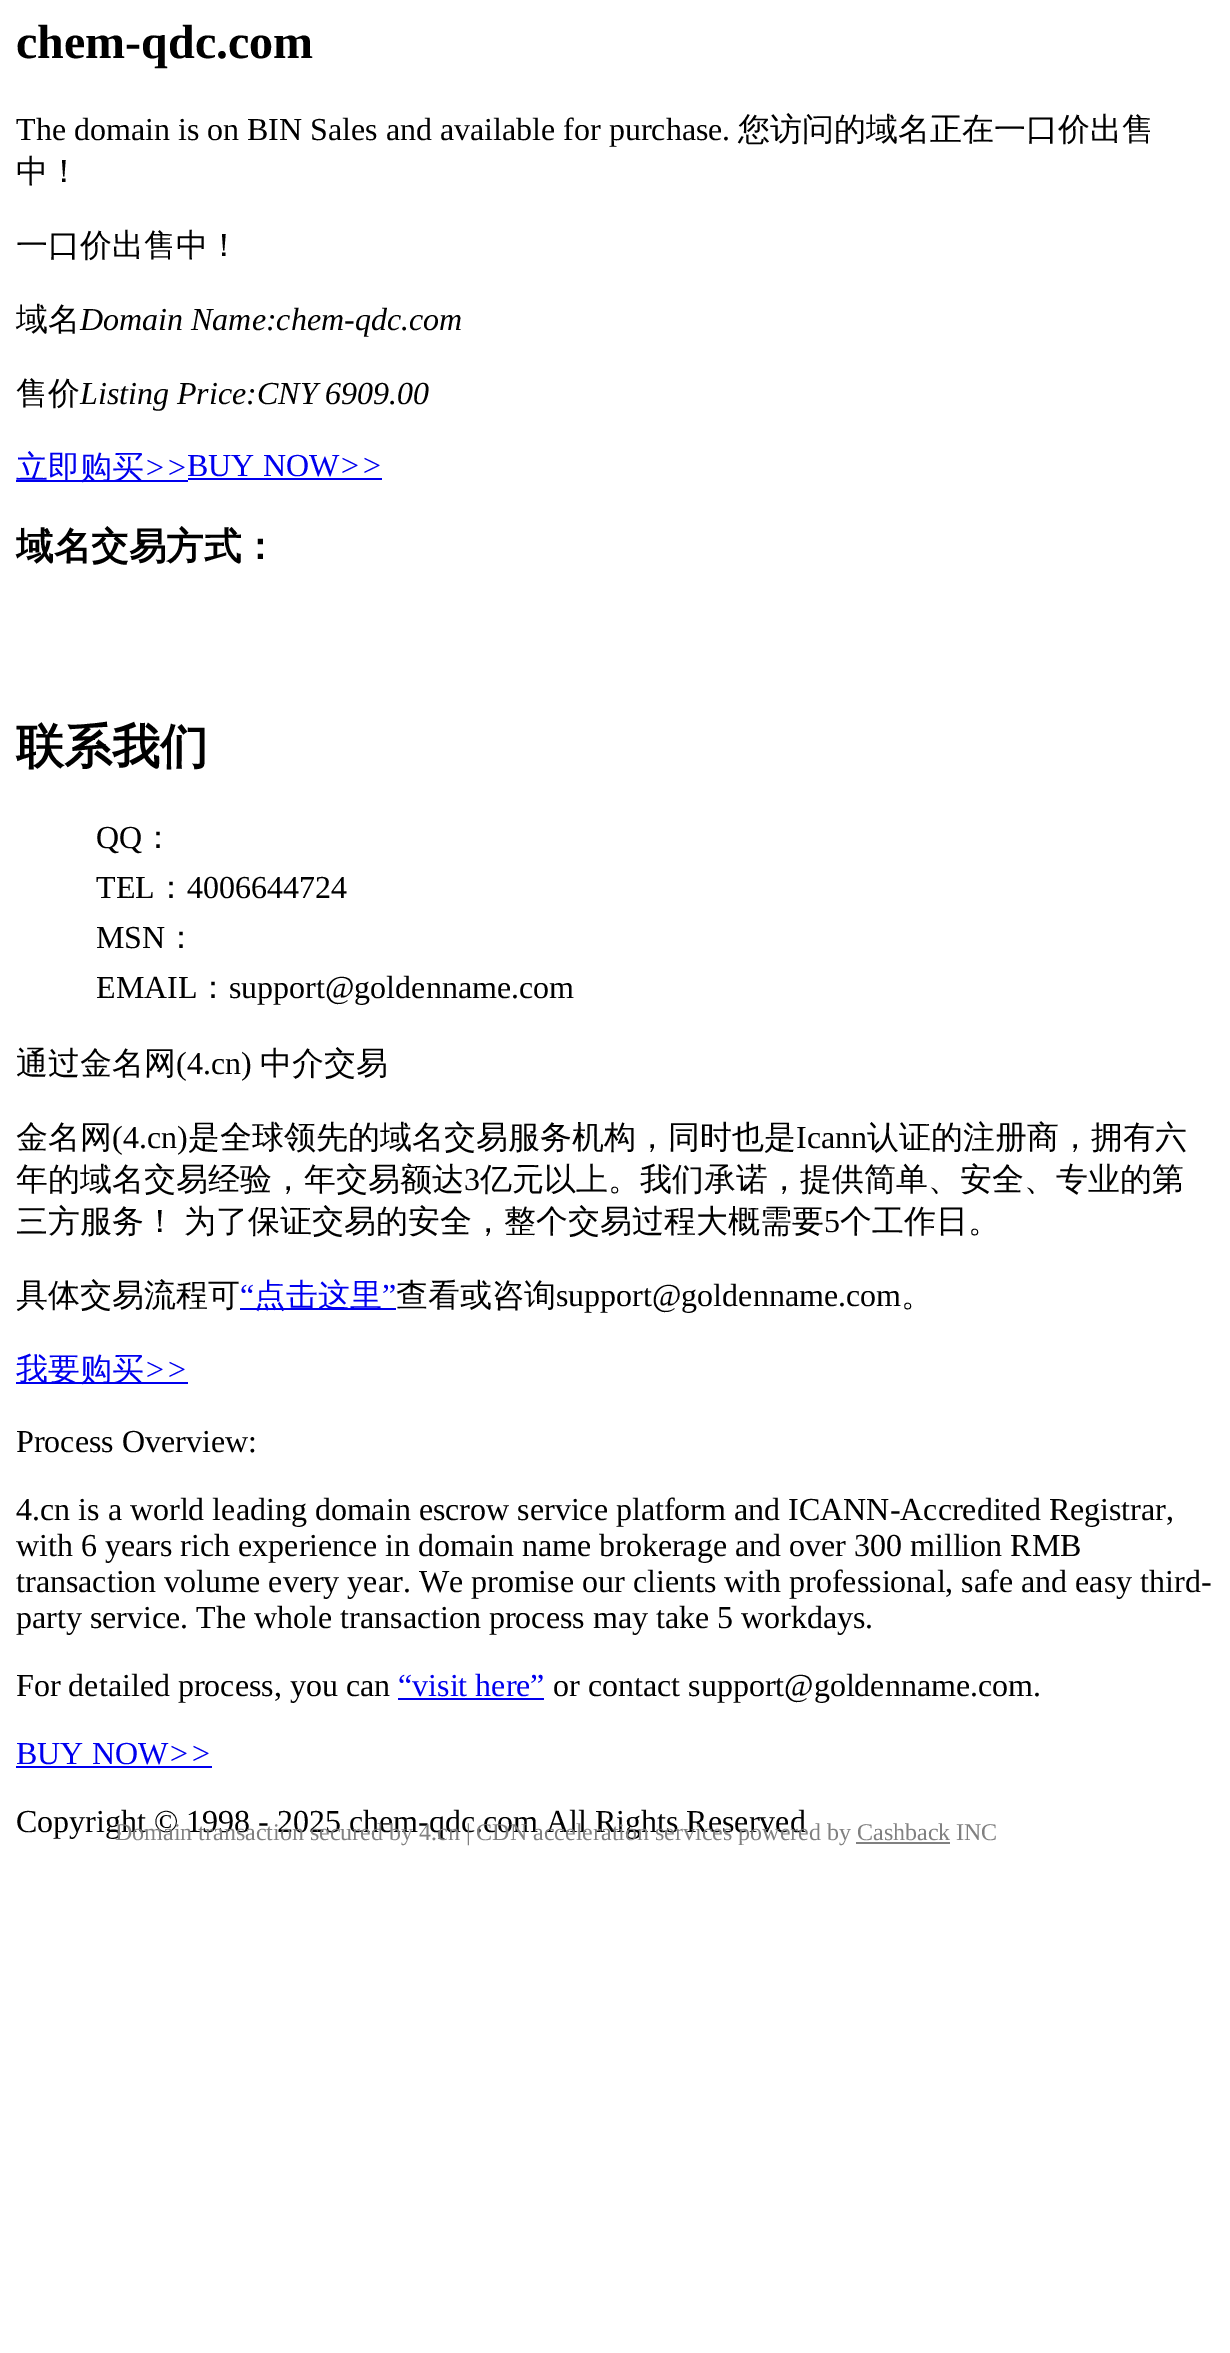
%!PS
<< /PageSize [1230 2353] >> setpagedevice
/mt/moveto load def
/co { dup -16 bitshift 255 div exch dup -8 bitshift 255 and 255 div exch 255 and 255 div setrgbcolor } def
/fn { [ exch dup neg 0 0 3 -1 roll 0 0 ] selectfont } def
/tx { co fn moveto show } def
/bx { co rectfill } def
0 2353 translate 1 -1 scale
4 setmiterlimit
0 0 1230 2353 16#FFFFFF bx
16 480 172 2 16#0000EE bx
188 478 194 2 16#0000EE bx
240 1308 156 2 16#0000EE bx
16 1382 172 2 16#0000EE bx
398 1698 146 2 16#0000EE bx
16 1766 196 2 16#0000EE bx
856 1842 94 2 16#808080 bx
(chem-qdc.com) 16 58 /LiberationSerif-Bold 48 16#000000 tx
(The domain is on BIN Sales and available for purchase.) 16 140 /LiberationSerif-Regular 32 16#000000 tx
(您访问的域名正在一口价出售) 738 140 /WenQuanYiZenHei-Medium 32 16#000000 tx
(中！) 16 182 /WenQuanYiZenHei-Medium 32 16#000000 tx
(一口价出售中！) 16 256 /WenQuanYiZenHei-Medium 32 16#000000 tx
(域名) 16 330 /WenQuanYiZenHei-Medium 32 16#000000 tx
(Domain Name:chem-qdc.com) 80 330 /LiberationSerif-Italic 32 16#000000 tx
(售价) 16 404 /WenQuanYiZenHei-Medium 32 16#000000 tx
(Listing Price:CNY 6909.00) 80 404 /LiberationSerif-Italic 32 16#000000 tx
(立即购买) 16 478 /WenQuanYiZenHei-Medium 32 16#0000EE tx
(>>) 144 478 /LiberationSerif-Italic 32 16#0000EE tx
(BUY NOW) 187 476 /LiberationSerif-Regular 32 16#0000EE tx
(>>) 339 476 /LiberationSerif-Italic 32 16#0000EE tx
(域名交易方式：) 16 559 /WenQuanYiZenHei-Bold 37.5 16#000000 tx
(联系我们) 16 763 /WenQuanYiZenHei-Bold 48 16#000000 tx
(QQ) 96 848 /LiberationSerif-Regular 32 16#000000 tx
(：) 142 848 /WenQuanYiZenHei-Medium 32 16#000000 tx
(TEL) 96 898 /LiberationSerif-Regular 32 16#000000 tx
(：) 155 898 /WenQuanYiZenHei-Medium 32 16#000000 tx
(4006644724) 187 898 /LiberationSerif-Regular 32 16#000000 tx
(MSN) 96 948 /LiberationSerif-Regular 32 16#000000 tx
(：) 165 948 /WenQuanYiZenHei-Medium 32 16#000000 tx
(EMAIL) 96 998 /LiberationSerif-Regular 32 16#000000 tx
(：) 197 998 /WenQuanYiZenHei-Medium 32 16#000000 tx
(support@goldenname.com) 229 998 /LiberationSerif-Regular 32 16#000000 tx
(通过金名网) 16 1074 /WenQuanYiZenHei-Medium 32 16#000000 tx
(\(4.cn\)) 176 1074 /LiberationSerif-Regular 32 16#000000 tx
(中介交易) 260 1074 /WenQuanYiZenHei-Medium 32 16#000000 tx
(金名网) 16 1148 /WenQuanYiZenHei-Medium 32 16#000000 tx
(\(4.cn\)) 112 1148 /LiberationSerif-Regular 32 16#000000 tx
(是全球领先的域名交易服务机构，同时也是) 188 1148 /WenQuanYiZenHei-Medium 32 16#000000 tx
(Icann) 796 1148 /LiberationSerif-Regular 32 16#000000 tx
(认证的注册商，拥有六) 867 1148 /WenQuanYiZenHei-Medium 32 16#000000 tx
(年的域名交易经验，年交易额达) 16 1190 /WenQuanYiZenHei-Medium 32 16#000000 tx
(3) 464 1190 /LiberationSerif-Regular 32 16#000000 tx
(亿元以上。我们承诺，提供简单、安全、专业的第) 480 1190 /WenQuanYiZenHei-Medium 32 16#000000 tx
16 1232 mt -2 0 32 (三方服务！ 为了保证交易的安全，整个交易过程大概需要) widthshow
(5) 824 1232 /LiberationSerif-Regular 32 16#000000 tx
(个工作日。) 840 1232 /WenQuanYiZenHei-Medium 32 16#000000 tx
(具体交易流程可) 16 1306 /WenQuanYiZenHei-Medium 32 16#000000 tx
(“) 240 1306 /LiberationSerif-Regular 32 16#0000EE tx
(点击这里) 254 1306 /WenQuanYiZenHei-Medium 32 16#0000EE tx
(”) 382 1306 /LiberationSerif-Regular 32 16#0000EE tx
(查看或咨询) 396 1306 /WenQuanYiZenHei-Medium 32 16#000000 tx
(support@goldenname.com) 556 1306 /LiberationSerif-Regular 32 16#000000 tx
(。) 901 1306 /WenQuanYiZenHei-Medium 32 16#000000 tx
(我要购买) 16 1380 /WenQuanYiZenHei-Medium 32 16#0000EE tx
(>>) 144 1380 /LiberationSerif-Italic 32 16#0000EE tx
(Process Overview:) 16 1452 /LiberationSerif-Regular 32 16#000000 tx
(4.cn is a world leading domain escrow service platform and ICANN-Accredited Registrar,) 16 1520 /LiberationSerif-Regular 32 16#000000 tx
(with 6 years rich experience in domain name brokerage and over 300 million RMB) 16 1556 /LiberationSerif-Regular 32 16#000000 tx
(transaction volume every year. We promise our clients with professional, safe and easy third-) 16 1592 /LiberationSerif-Regular 32 16#000000 tx
(party service. The whole transaction process may take 5 workdays.) 16 1628 /LiberationSerif-Regular 32 16#000000 tx
(For detailed process, you can) 16 1696 /LiberationSerif-Regular 32 16#000000 tx
(“visit here”) 398 1696 /LiberationSerif-Regular 32 16#0000EE tx
(or contact support@goldenname.com.) 553 1696 /LiberationSerif-Regular 32 16#000000 tx
(BUY NOW) 16 1764 /LiberationSerif-Regular 32 16#0000EE tx
(>>) 168 1764 /LiberationSerif-Italic 32 16#0000EE tx
(Copyright © 1998 - 2025 chem-qdc.com All Rights Reserved) 16 1832 /LiberationSerif-Regular 32 16#000000 tx
(Domain transaction secured by 4.cn | CDN acceleration services powered by Cashback INC) 115 1840 /LiberationSerif-Regular 24 16#808080 tx
showpage
